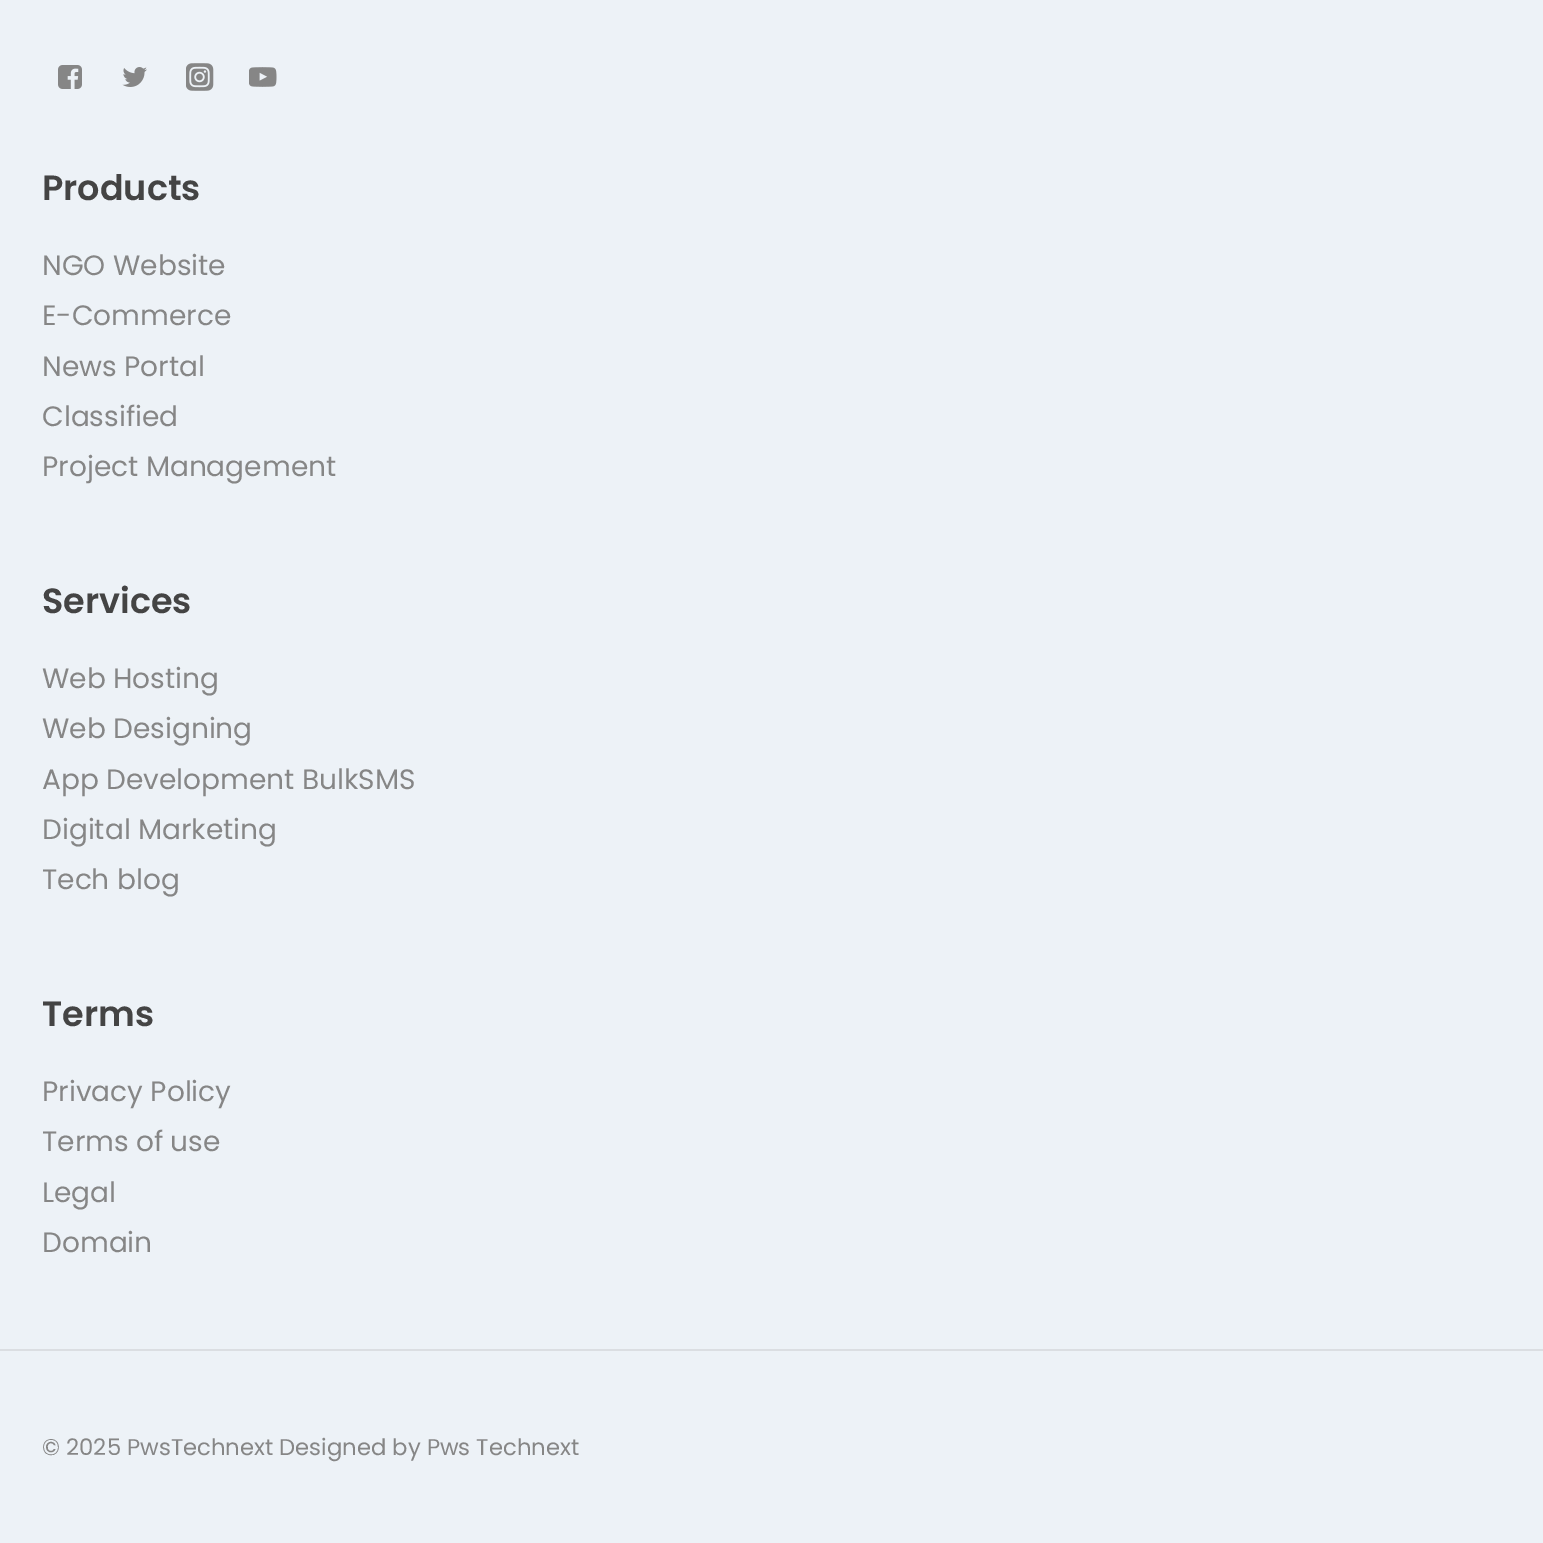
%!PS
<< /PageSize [1543 1543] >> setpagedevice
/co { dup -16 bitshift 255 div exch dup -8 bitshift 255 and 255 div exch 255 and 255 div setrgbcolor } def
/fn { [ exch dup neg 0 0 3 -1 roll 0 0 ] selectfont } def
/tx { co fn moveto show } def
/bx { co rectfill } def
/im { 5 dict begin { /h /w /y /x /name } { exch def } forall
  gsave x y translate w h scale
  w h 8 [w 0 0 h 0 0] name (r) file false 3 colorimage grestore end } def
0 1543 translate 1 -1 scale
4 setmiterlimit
0 0 1543 1543 16#EDF2F7 bx
(media/1.raw) 58 65 24 24 im
(media/2.raw) 122 67 25 20 im
(media/3.raw) 186 63 28 28 im
(media/4.raw) 249 67 28 20 im
0 1349 1543 2 16#DBDEE2 bx
(Products) 42 200 /Poppins-SemiBold 35 16#444444 tx
(NGO Website) 42 275 /Poppins-Regular 28 16#868686 tx
(E-Commerce) 42 325 /Poppins-Regular 28 16#868686 tx
(News Portal) 42 376 /Poppins-Regular 28 16#868686 tx
(Classified) 42 426 /Poppins-Regular 28 16#868686 tx
(Project Management) 42 476 /Poppins-Regular 28 16#868686 tx
(Services) 42 613 /Poppins-SemiBold 35 16#444444 tx
(Web Hosting) 42 688 /Poppins-Regular 28 16#868686 tx
(Web Designing) 42 738 /Poppins-Regular 28 16#868686 tx
(App Development BulkSMS) 42 789 /Poppins-Regular 28 16#868686 tx
(Digital Marketing) 42 839 /Poppins-Regular 28 16#868686 tx
(Tech blog) 42 889 /Poppins-Regular 28 16#868686 tx
(Terms) 42 1026 /Poppins-SemiBold 35 16#444444 tx
(Privacy Policy) 42 1101 /Poppins-Regular 28 16#868686 tx
(Terms of use) 42 1151 /Poppins-Regular 28 16#868686 tx
(Legal) 42 1202 /Poppins-Regular 28 16#868686 tx
(Domain) 42 1252 /Poppins-Regular 28 16#868686 tx
(© 2025 PwsTechnext Designed by Pws Technext) 42 1455 /Poppins-Regular 22.75 16#868686 tx
showpage
